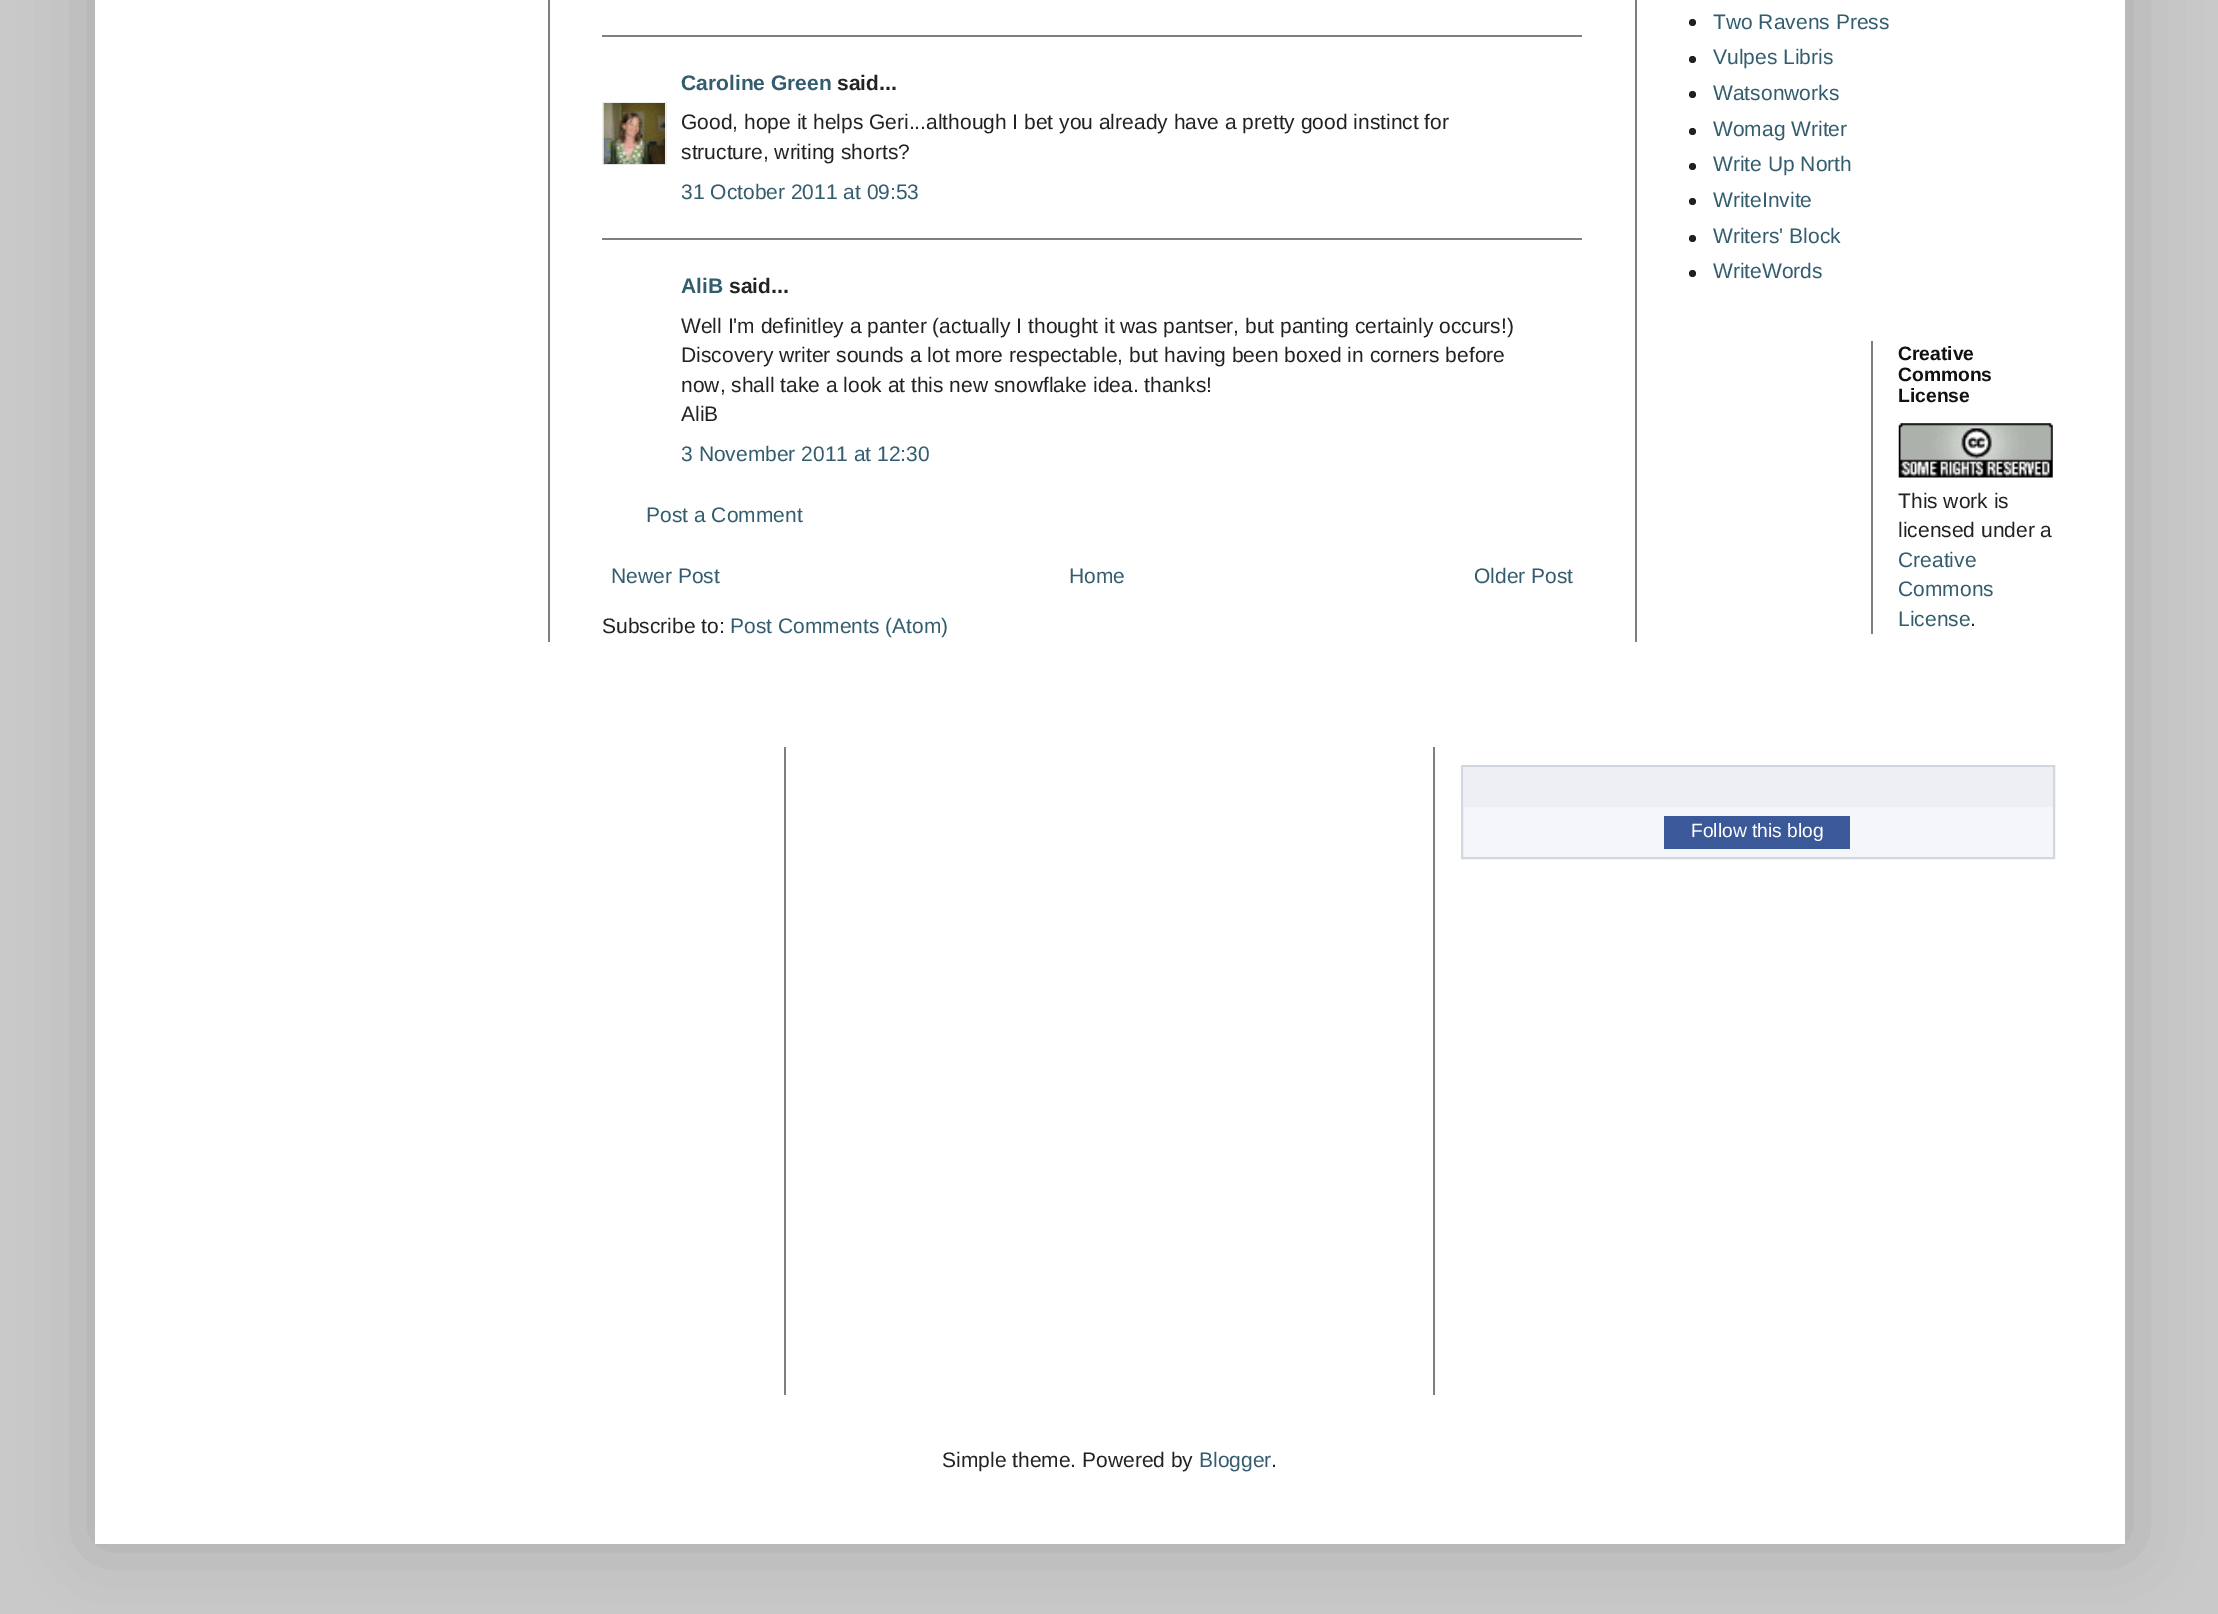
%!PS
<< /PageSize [2218 1614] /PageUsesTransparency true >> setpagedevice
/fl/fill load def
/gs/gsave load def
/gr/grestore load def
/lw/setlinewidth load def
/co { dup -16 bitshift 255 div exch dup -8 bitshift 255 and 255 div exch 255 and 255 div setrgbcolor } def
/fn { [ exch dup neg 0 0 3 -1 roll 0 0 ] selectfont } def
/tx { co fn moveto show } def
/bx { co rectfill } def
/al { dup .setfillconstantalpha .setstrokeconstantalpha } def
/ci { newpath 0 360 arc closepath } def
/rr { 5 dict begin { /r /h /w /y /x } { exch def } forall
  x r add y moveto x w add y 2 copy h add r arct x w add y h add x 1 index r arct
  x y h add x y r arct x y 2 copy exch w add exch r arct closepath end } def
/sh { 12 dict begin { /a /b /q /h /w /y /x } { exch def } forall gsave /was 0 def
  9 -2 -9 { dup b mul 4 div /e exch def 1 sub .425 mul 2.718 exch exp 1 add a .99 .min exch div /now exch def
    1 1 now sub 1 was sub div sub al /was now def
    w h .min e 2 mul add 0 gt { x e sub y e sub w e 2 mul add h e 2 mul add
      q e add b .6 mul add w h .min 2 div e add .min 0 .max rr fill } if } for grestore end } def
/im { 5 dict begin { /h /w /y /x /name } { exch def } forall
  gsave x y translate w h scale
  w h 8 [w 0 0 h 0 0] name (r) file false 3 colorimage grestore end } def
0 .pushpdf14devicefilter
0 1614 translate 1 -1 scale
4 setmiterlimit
0 0 2218 1614 16#C9C9C9 bx
16#000000 co
95 -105 2030 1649 0 35 .15 sh
95 0 2030 1544 16#FFFFFF bx
548 0 2 642 16#7F7F7F bx
1635 0 2 642 16#7F7F7F bx
602 35 980 2 16#7F7F7F bx
gs
602 102 65 63 rectclip
16#EEEEEE co
2 lw
603 103 63 62 rectstroke
gr
(media/1.raw) 603 103 62 62 im
602 238 980 2 16#7F7F7F bx
16#222222 co
1692.5 22.5 3.5 ci fl
1692.5 59.5 3.5 ci fl
1692.5 94.5 3.5 ci fl
1692.5 131.5 3.5 ci fl
1692.5 166.5 3.5 ci fl
1692.5 201.5 3.5 ci fl
1692.5 238.5 3.5 ci fl
1692.5 273.5 3.5 ci fl
1871 341 2 293 16#7F7F7F bx
(media/2.raw) 1898 423 155 55 im
784 747 2 648 16#7F7F7F bx
1433 747 2 648 16#7F7F7F bx
1463 807 590 50 16#F5F6F9 bx
16#D1D7DF co
2 lw
1462 766 592 92 rectstroke
1463 767 590 40 16#EDEFF4 bx
1664 816 186 33 16#3B5998 bx
(Caroline Green) 681 90 /LiberationSans-Bold 21 16#335D6E tx
(said...) 837 90 /LiberationSans-Bold 21 16#222222 tx
(Good, hope it helps Geri...although I bet you already have a pretty good instinct for) 681 129 /LiberationSans-Regular 21 16#222222 tx
(structure, writing shorts?) 681 159 /LiberationSans-Regular 21 16#222222 tx
(31 October 2011 at 09:53) 681 199 /LiberationSans-Regular 21 16#335D6E tx
(AliB) 681 293 /LiberationSans-Bold 21 16#335D6E tx
(said...) 729 293 /LiberationSans-Bold 21 16#222222 tx
(Well I'm definitley a panter \(actually I thought it was pantser, but panting certainly occurs!\)) 681 333 /LiberationSans-Regular 21 16#222222 tx
(Discovery writer sounds a lot more respectable, but having been boxed in corners before) 681 362 /LiberationSans-Regular 21 16#222222 tx
(now, shall take a look at this new snowflake idea. thanks!) 681 392 /LiberationSans-Regular 21 16#222222 tx
(AliB) 681 421 /LiberationSans-Regular 21 16#222222 tx
(3 November 2011 at 12:30) 681 461 /LiberationSans-Regular 21 16#335D6E tx
(Post a Comment) 646 522 /LiberationSans-Regular 21 16#335D6E tx
(Newer Post) 611 583 /LiberationSans-Regular 21 16#335D6E tx
(Home) 1069 583 /LiberationSans-Regular 21 16#335D6E tx
(Older Post) 1474 583 /LiberationSans-Regular 21 16#335D6E tx
(Subscribe to:) 602 633 /LiberationSans-Regular 21 16#222222 tx
(Post Comments \(Atom\)) 730 633 /LiberationSans-Regular 21 16#335D6E tx
(Two Ravens Press) 1713 29 /LiberationSans-Regular 21 16#335D6E tx
(Vulpes Libris) 1713 64 /LiberationSans-Regular 21 16#335D6E tx
(Watsonworks) 1713 100 /LiberationSans-Regular 21 16#335D6E tx
(Womag Writer) 1713 136 /LiberationSans-Regular 21 16#335D6E tx
(Write Up North) 1713 171 /LiberationSans-Regular 21 16#335D6E tx
(WriteInvite) 1713 207 /LiberationSans-Regular 21 16#335D6E tx
(Writers' Block) 1713 243 /LiberationSans-Regular 21 16#335D6E tx
(WriteWords) 1713 278 /LiberationSans-Regular 21 16#335D6E tx
(Creative) 1898 360 /LiberationSans-Bold 19.25 16#111111 tx
(Commons) 1898 381 /LiberationSans-Bold 19.25 16#111111 tx
(License) 1898 402 /LiberationSans-Bold 19.25 16#111111 tx
(This work is) 1898 508 /LiberationSans-Regular 21 16#222222 tx
(licensed under a) 1898 537 /LiberationSans-Regular 21 16#222222 tx
(Creative) 1898 567 /LiberationSans-Regular 21 16#335D6E tx
(Commons) 1898 596 /LiberationSans-Regular 21 16#335D6E tx
(License) 1898 626 /LiberationSans-Regular 21 16#335D6E tx
(.) 1970 626 /LiberationSans-Regular 21 16#222222 tx
(Follow this blog) 1691 837 /LiberationSans-Regular 19.25 16#FFFFFF tx
(Simple theme. Powered by) 942 1467 /LiberationSans-Regular 21 16#222222 tx
(Blogger) 1199 1467 /LiberationSans-Regular 21 16#335D6E tx
(.) 1271 1467 /LiberationSans-Regular 21 16#222222 tx
.poppdf14devicefilter showpage
